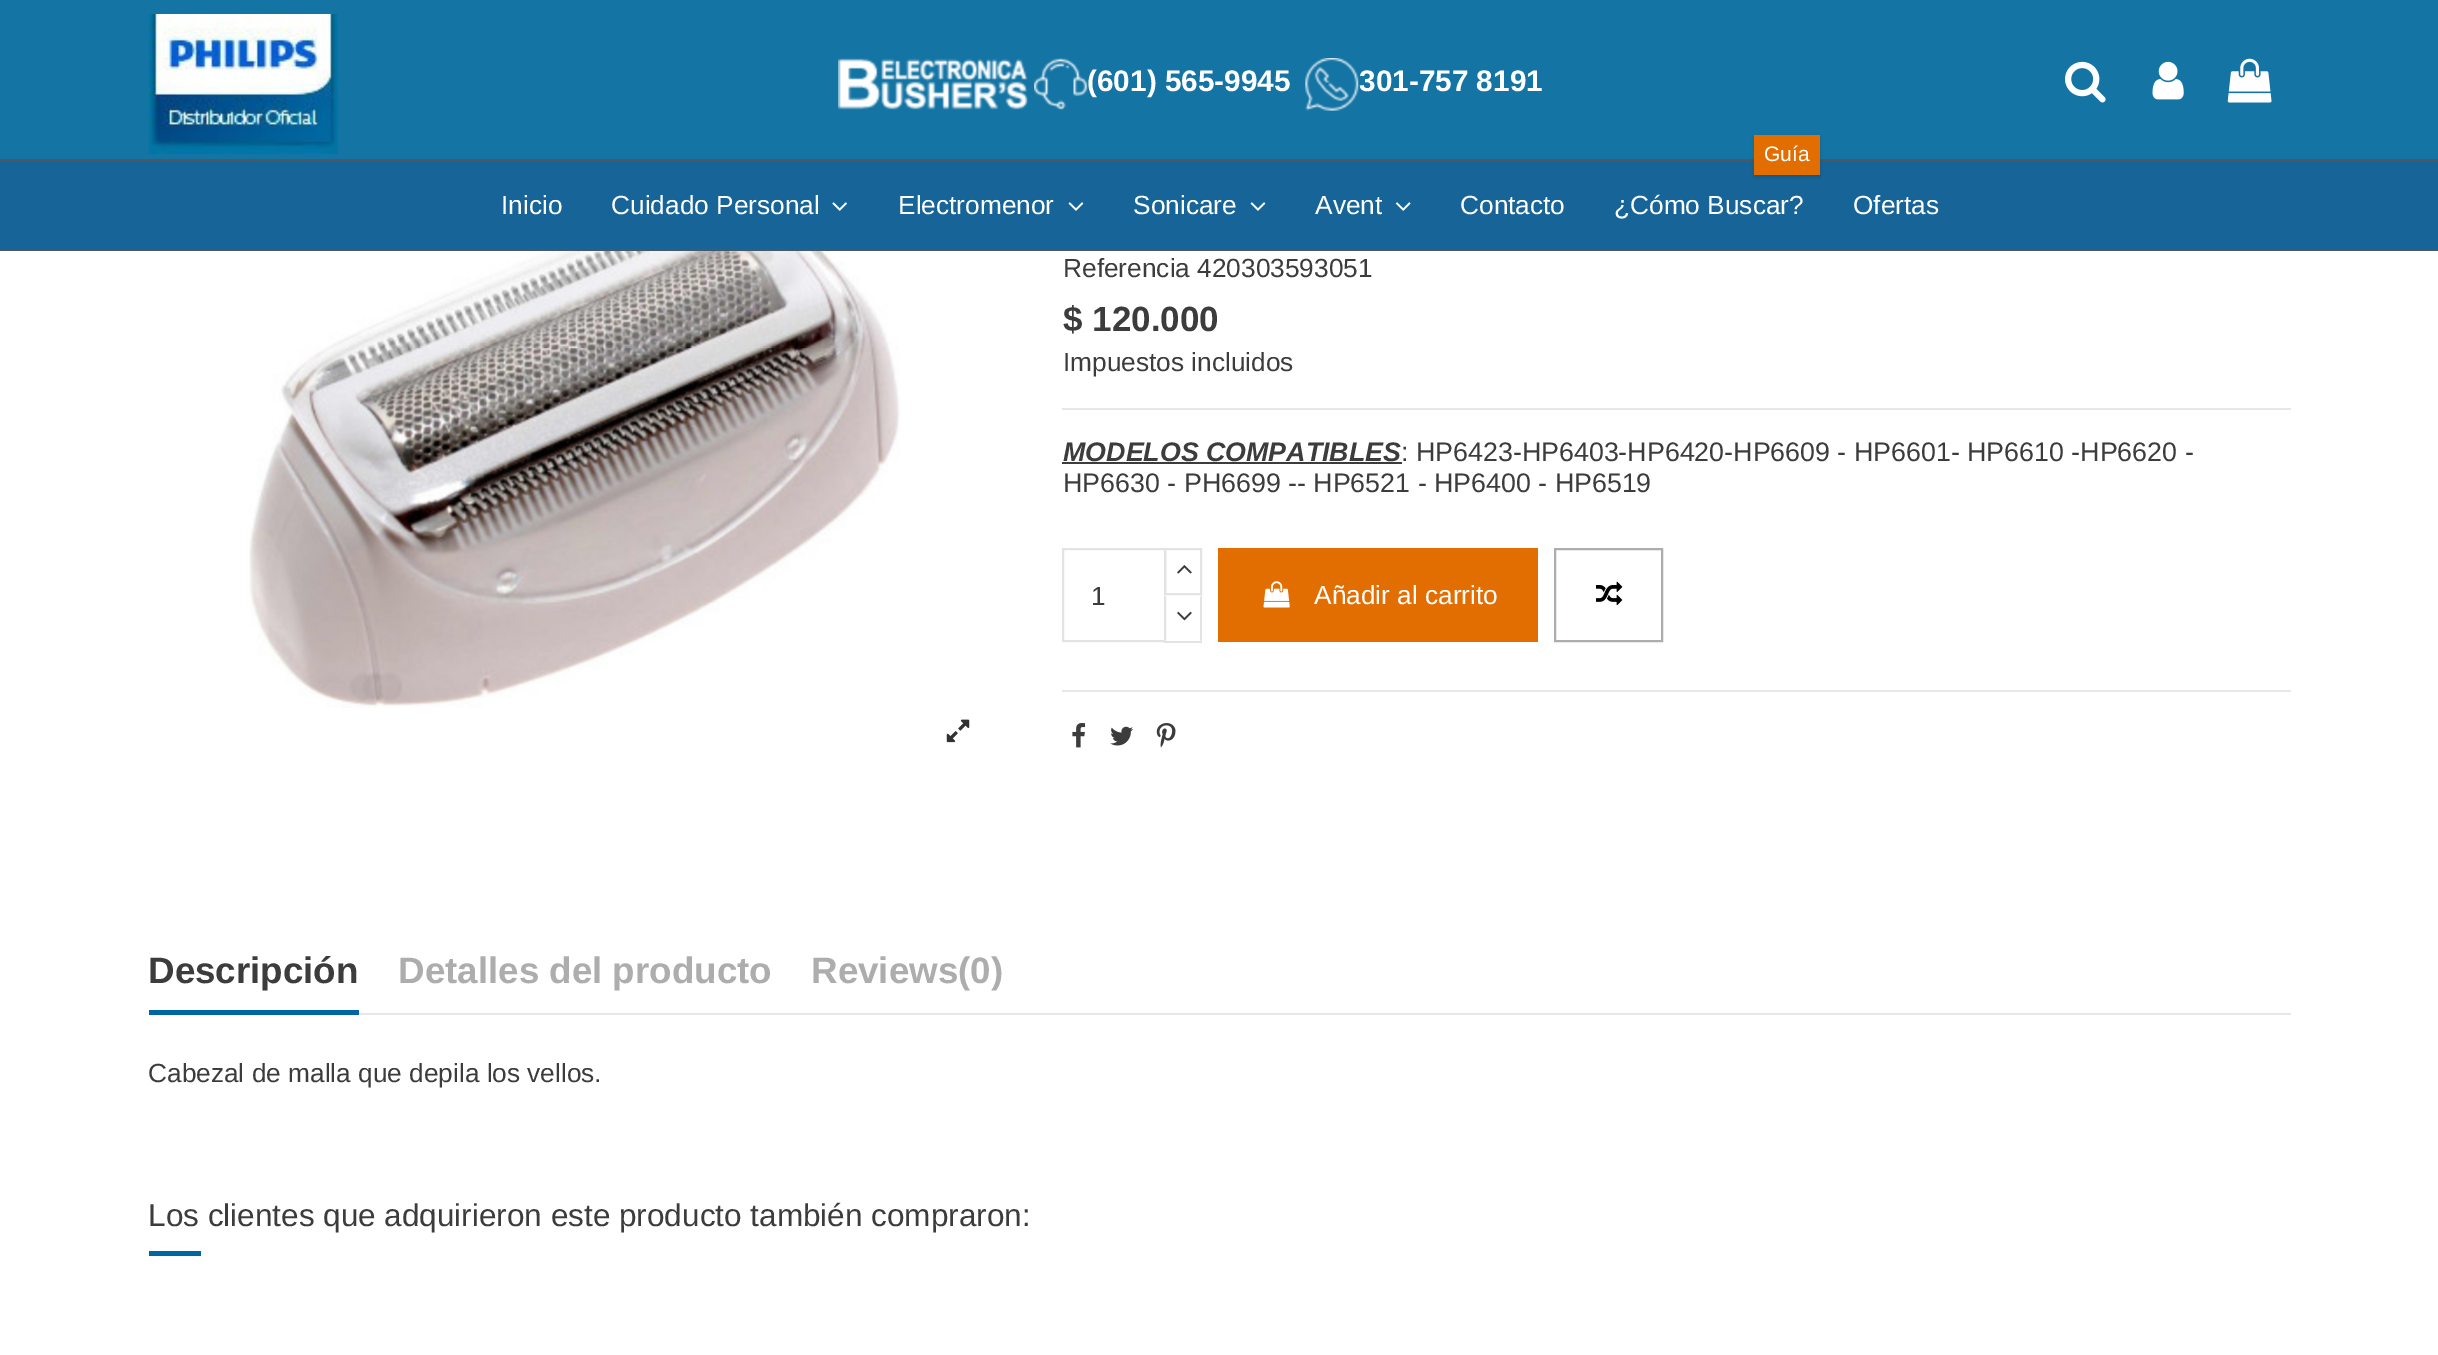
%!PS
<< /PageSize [2438 1355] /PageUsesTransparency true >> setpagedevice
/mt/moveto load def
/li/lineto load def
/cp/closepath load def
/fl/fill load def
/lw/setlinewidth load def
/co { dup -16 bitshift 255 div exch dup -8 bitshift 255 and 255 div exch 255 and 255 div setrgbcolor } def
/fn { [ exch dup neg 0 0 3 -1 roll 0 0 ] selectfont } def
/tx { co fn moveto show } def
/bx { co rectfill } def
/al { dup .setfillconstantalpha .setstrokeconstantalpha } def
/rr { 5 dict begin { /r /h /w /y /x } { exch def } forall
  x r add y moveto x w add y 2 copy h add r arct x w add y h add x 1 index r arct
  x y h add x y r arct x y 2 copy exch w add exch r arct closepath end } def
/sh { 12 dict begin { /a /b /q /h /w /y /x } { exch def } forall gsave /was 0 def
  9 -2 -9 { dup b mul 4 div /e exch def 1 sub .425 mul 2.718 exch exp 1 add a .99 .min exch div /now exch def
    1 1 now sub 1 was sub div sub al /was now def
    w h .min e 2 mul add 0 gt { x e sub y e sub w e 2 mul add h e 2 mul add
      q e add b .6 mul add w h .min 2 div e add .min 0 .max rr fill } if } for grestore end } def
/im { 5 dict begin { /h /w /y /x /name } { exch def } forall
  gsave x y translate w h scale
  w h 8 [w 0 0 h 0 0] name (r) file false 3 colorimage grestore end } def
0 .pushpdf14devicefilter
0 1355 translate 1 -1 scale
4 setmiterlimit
0 0 2438 1355 16#FFFFFF bx
0 0 2438 159 16#1474A4 bx
0 249 2438 2 16#495863 bx
(media/1.raw) 148 14 190 140 im
(media/2.raw) 838 58 190 52 im
(media/3.raw) 1034 58 54 52 im
(media/4.raw) 1305 58 54 53 im
(media/5.raw) 2065 61 41 42 im
(media/6.raw) 2152 61 32 39 im
(media/7.raw) 2227 58 45 45 im
0 161 2438 88 16#176498 bx
0 159 2438 2 16#495863 bx
(media/8.raw) 832 202 15 9 im
(media/9.raw) 1068 202 16 9 im
(media/9.raw) 1250 202 16 9 im
(media/10.raw) 1395 202 16 9 im
16#000000 co
1754 137 66 40 0 2 .15 sh
1754 135 66 40 16#E26D00 bx
(media/11.raw) 249 251 651 457 im
(media/12.raw) 946 719 24 24 im
1062 408 1229 2 16#E7E7E7 bx
1062 462 340 2 16#3C3C3C bx
16#E3E3E3 co
2 lw
1063 549 102 92 rectstroke
1165 549 36 45 rectstroke
(media/13.raw) 1177 565 15 9 im
1164 595 2 46 16#FFFFFF bx
16#E3E3E3 co
1202 595 mt 1202 642 li 1200 640 li 1200 597 li cp fl
1164 641 38 2 16#E3E3E3 bx
1164 642 mt 1164 595 li 1166 597 li 1166 640 li cp fl
(media/14.raw) 1177 611 15 10 im
1218 548 320 94 16#E26D00 bx
(media/15.raw) 1263 581 27 27 im
16#ADADAD co
1555 549 107 92 rectstroke
(media/16.raw) 1596 581 27 25 im
1062 690 1229 2 16#E7E7E7 bx
(media/17.raw) 1072 723 14 25 im
(media/18.raw) 1110 726 24 20 im
(media/19.raw) 1156 723 20 25 im
359 1013 1932 2 16#E7E7E7 bx
149 1010 210 5 16#0066A1 bx
149 1251 52 5 16#0066A1 bx
(\(601\) 565-9945) 1087 91 /LiberationSans-Bold 29.75 16#FFFFFF tx
(301-757 8191) 1359 91 /LiberationSans-Bold 29.75 16#FFFFFF tx
(Inicio) 501 214 /LiberationSans-Regular 26.25 16#FFFFFF tx
(Cuidado Personal) 611 214 /LiberationSans-Regular 26.25 16#FFFFFF tx
(Electromenor) 898 214 /LiberationSans-Regular 26.25 16#FFFFFF tx
(Sonicare) 1133 214 /LiberationSans-Regular 26.25 16#FFFFFF tx
(Avent) 1315 214 /LiberationSans-Regular 26.25 16#FFFFFF tx
(Contacto) 1460 214 /LiberationSans-Regular 26.25 16#FFFFFF tx
(Guía) 1764 161 /LiberationSans-Regular 21 16#FFFFFF tx
(¿Cómo Buscar?) 1614 214 /LiberationSans-Regular 26.25 16#FFFFFF tx
(Ofertas) 1853 214 /LiberationSans-Regular 26.25 16#FFFFFF tx
(Referencia 420303593051) 1063 277 /LiberationSans-Regular 26.25 16#3C3C3C tx
($ 120.000) 1063 331 /LiberationSans-Bold 35 16#3C3C3C tx
(Impuestos incluidos) 1063 371 /LiberationSans-Regular 26.25 16#3C3C3C tx
(MODELOS COMPATIBLES) 1063 461 /LiberationSans-BoldItalic 26.8 16#3C3C3C tx
(: HP6423-HP6403-HP6420-HP6609 - HP6601- HP6610 -HP6620 -) 1401 461 /LiberationSans-Regular 26.8 16#3C3C3C tx
(HP6630 - PH6699 -- HP6521 - HP6400 - HP6519) 1063 492 /LiberationSans-Regular 26.8 16#3C3C3C tx
(1) 1091 605 /LiberationSans-Regular 26.25 16#3C3C3C tx
(Añadir al carrito) 1314 604 /LiberationSans-Regular 26.25 16#FFFFFF tx
(Descripción) 148 983 /LiberationSans-Bold 36.75 16#3C3C3C tx
(Detalles del producto) 398 983 /LiberationSans-Bold 36.75 16#ADADAD tx
(Reviews\(0\)) 811 983 /LiberationSans-Bold 36.75 16#ADADAD tx
(Cabezal de malla que depila los vellos.) 148 1082 /LiberationSans-Regular 26.25 16#3C3C3C tx
(Los clientes que adquirieron este producto también compraron:) 148 1226 /LiberationSans-Regular 31.5 16#3C3C3C tx
.poppdf14devicefilter showpage
